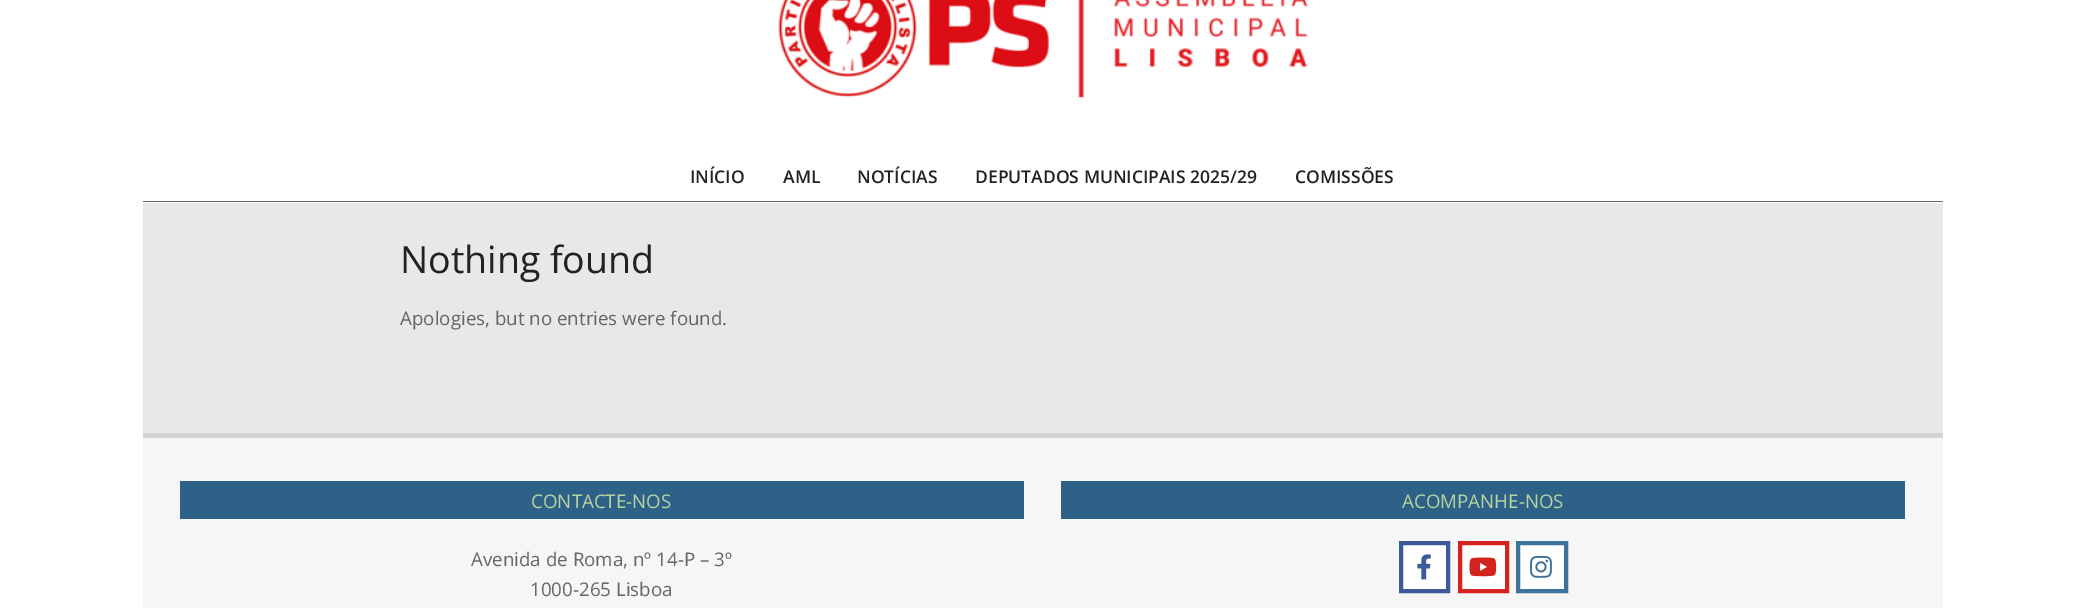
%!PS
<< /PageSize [2083 608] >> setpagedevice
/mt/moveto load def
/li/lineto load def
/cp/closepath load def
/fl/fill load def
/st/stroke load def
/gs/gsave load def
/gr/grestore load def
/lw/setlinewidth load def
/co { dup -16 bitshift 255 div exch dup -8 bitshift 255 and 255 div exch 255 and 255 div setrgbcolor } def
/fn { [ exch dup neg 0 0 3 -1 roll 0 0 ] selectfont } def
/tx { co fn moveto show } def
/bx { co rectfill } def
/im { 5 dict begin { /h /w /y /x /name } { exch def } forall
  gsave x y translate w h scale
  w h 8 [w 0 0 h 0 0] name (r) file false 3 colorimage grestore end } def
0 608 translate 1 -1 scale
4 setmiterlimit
0 0 2083 608 16#FFFFFF bx
143 201 1800 1 16#666666 bx
(media/1.raw) 778 0 530 99 im
143 203 1800 230 16#E8E8E8 bx
143 438 1800 170 16#F6F6F6 bx
143 433 1800 5 16#D4D4D4 bx
180 481 844 38 16#2D6187 bx
1061 481 844 38 16#2D6187 bx
16#FFFFFF co
1401 543 mt 1448 543 li 1448 591 li 1401 591 li cp gs fl gr
16#3C5A98 co
4 lw
st
(media/2.raw) 1417 554 14 26 im
16#FFFFFF co
1460 543 mt 1507 543 li 1507 591 li 1460 591 li cp gs fl gr
16#D4231E co
st
(media/3.raw) 1469 557 28 20 im
16#FFFFFF co
1518 543 mt 1566 543 li 1566 591 li 1518 591 li cp gs fl gr
16#3F729B co
st
(media/4.raw) 1530 555 22 23 im
(INÍCIO) 690 183 /OpenSans-SemiBold 17.5 16#222222 tx
(AML) 783 183 /OpenSans-SemiBold 17.5 16#222222 tx
(NOTÍCIAS) 857 183 /OpenSans-SemiBold 17.5 16#222222 tx
(DEPUTADOS MUNICIPAIS 2025/29) 975 183 /OpenSans-SemiBold 17.5 16#222222 tx
(COMISSÕES) 1295 183 /OpenSans-SemiBold 17.5 16#222222 tx
(Nothing found) 400 273 /OpenSans-Regular 37.5 16#222222 tx
(Apologies, but no entries were found.) 400 325 /OpenSans-Regular 18.75 16#666666 tx
(CONTACTE-NOS) 531 508 /OpenSans-Regular 18.75 16#B7D3A0 tx
(Avenida de Roma, nº 14-P – 3º) 471 566 /OpenSans-Regular 18.75 16#666666 tx
(1000-265 Lisboa) 530 596 /OpenSans-Regular 18.75 16#666666 tx
(ACOMPANHE-NOS) 1402 508 /OpenSans-Regular 18.75 16#B7D3A0 tx
showpage
